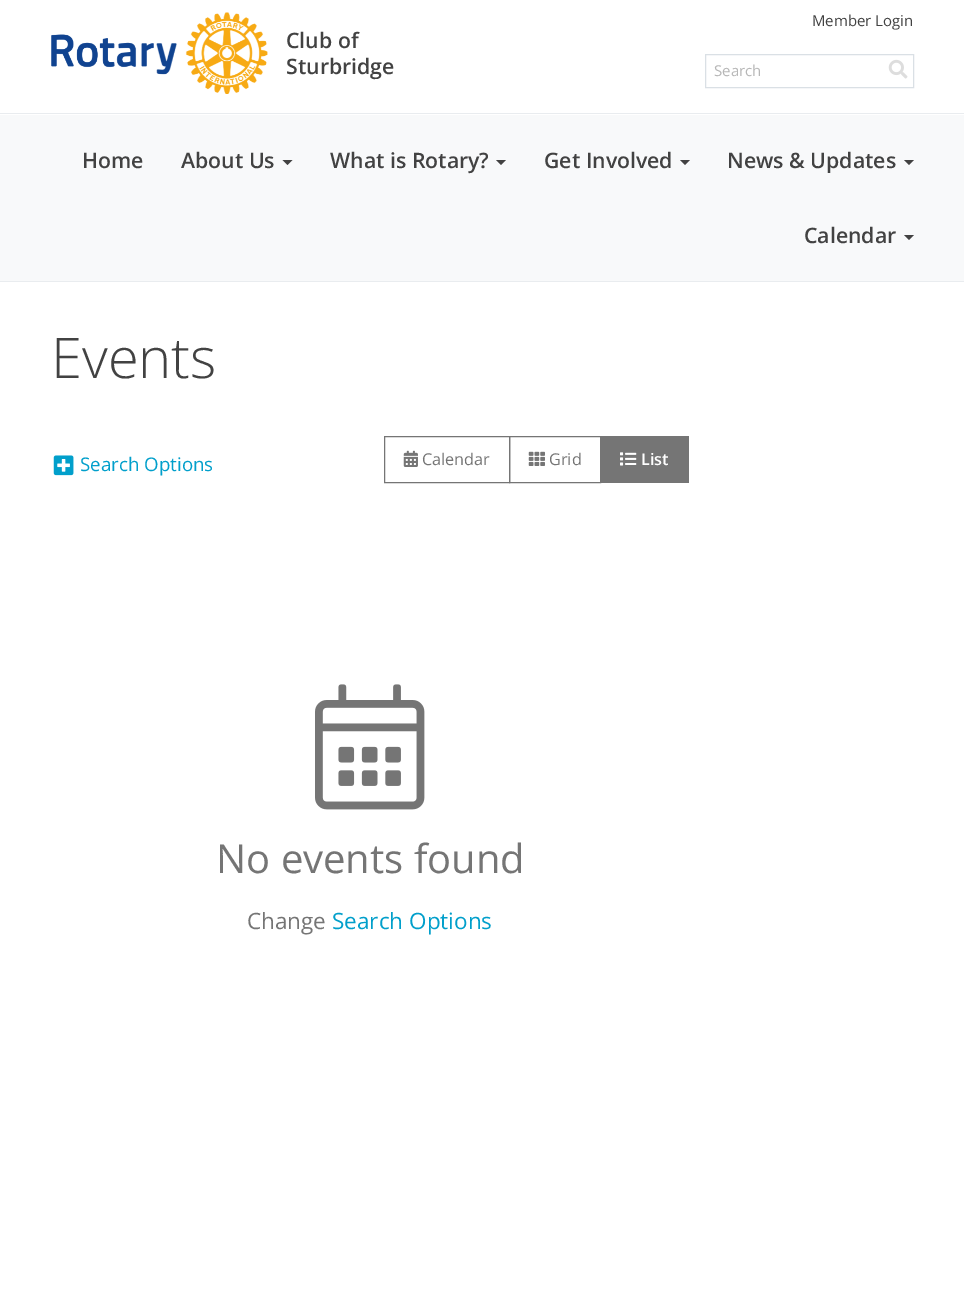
%!PS
<< /PageSize [964 1307] >> setpagedevice
/mt/moveto load def
/li/lineto load def
/cp/closepath load def
/fl/fill load def
/co { dup -16 bitshift 255 div exch dup -8 bitshift 255 and 255 div exch 255 and 255 div setrgbcolor } def
/fn { [ exch dup neg 0 0 3 -1 roll 0 0 ] selectfont } def
/tx { co fn moveto show } def
/bx { co rectfill } def
/im { 5 dict begin { /h /w /y /x /name } { exch def } forall
  gsave x y translate w h scale
  w h 8 [w 0 0 h 0 0] name (r) file false 3 colorimage grestore end } def
0 1307 translate 1 -1 scale
4 setmiterlimit
0 0 964 1307 16#FFFFFF bx
(media/1.raw) 51 12 217 82 im
16#DAE0E5 co
705.5 54.5 208 33 rectstroke
(media/2.raw) 888 59 20 20 im
0 113 964 1 16#E9ECEF bx
0 115 964 166 16#F8F9FA bx
0 281 964 1 16#E9ECEF bx
16#424242 co
282.5 160 mt 292.5 160 li 287.5 165 li cp fl
496 160 mt 506 160 li 501 165 li cp fl
680 160 mt 690 160 li 685 165 li cp fl
904 160 mt 914 160 li 909 165 li cp fl
904 235 mt 914 235 li 909 240 li cp fl
(media/3.raw) 53 455 21 21 im
16#757575 co
384.5 436.5 125 46 rectstroke
(media/4.raw) 403 450 15 17 im
509.5 436.5 91 46 rectstroke
(media/5.raw) 528 451 17 15 im
601 436 88 47 16#757575 bx
(media/6.raw) 620 452 17 14 im
(media/7.raw) 315 684 110 126 im
(Club of) 286 48 /OpenSans-SemiBold 21.25 16#424242 tx
(Sturbridge) 286 74 /OpenSans-SemiBold 21.25 16#424242 tx
(Member Login) 812 26 /OpenSans-Regular 15 16#424242 tx
(Search) 714 76 /OpenSans-Regular 15 16#B7B7B7 tx
(Home) 82 168 /OpenSans-SemiBold 21.25 16#424242 tx
(About Us) 181 168 /OpenSans-SemiBold 21.25 16#424242 tx
(What is Rotary?) 330 168 /OpenSans-SemiBold 21.25 16#424242 tx
(Get Involved) 544 168 /OpenSans-SemiBold 21.25 16#424242 tx
(News & Updates) 727 168 /OpenSans-SemiBold 21.25 16#424242 tx
(Calendar) 804 243 /OpenSans-SemiBold 21.25 16#424242 tx
(Events) 51 378 /OpenSans-Light 56 16#424242 tx
(Search Options) 80 471 /OpenSans-Regular 18.75 16#019FCB tx
(Calendar) 422 465 /OpenSans-Regular 16.25 16#757575 tx
(Grid) 549 465 /OpenSans-Regular 16.25 16#757575 tx
(List) 641 465 /OpenSans-SemiBold 16.25 16#FFFFFF tx
(No events found) 216 873 /OpenSans-Regular 40 16#757575 tx
(Change) 247 929 /OpenSans-Regular 22.5 16#757575 tx
(Search Options) 332 929 /OpenSans-Regular 22.5 16#019FCB tx
showpage
